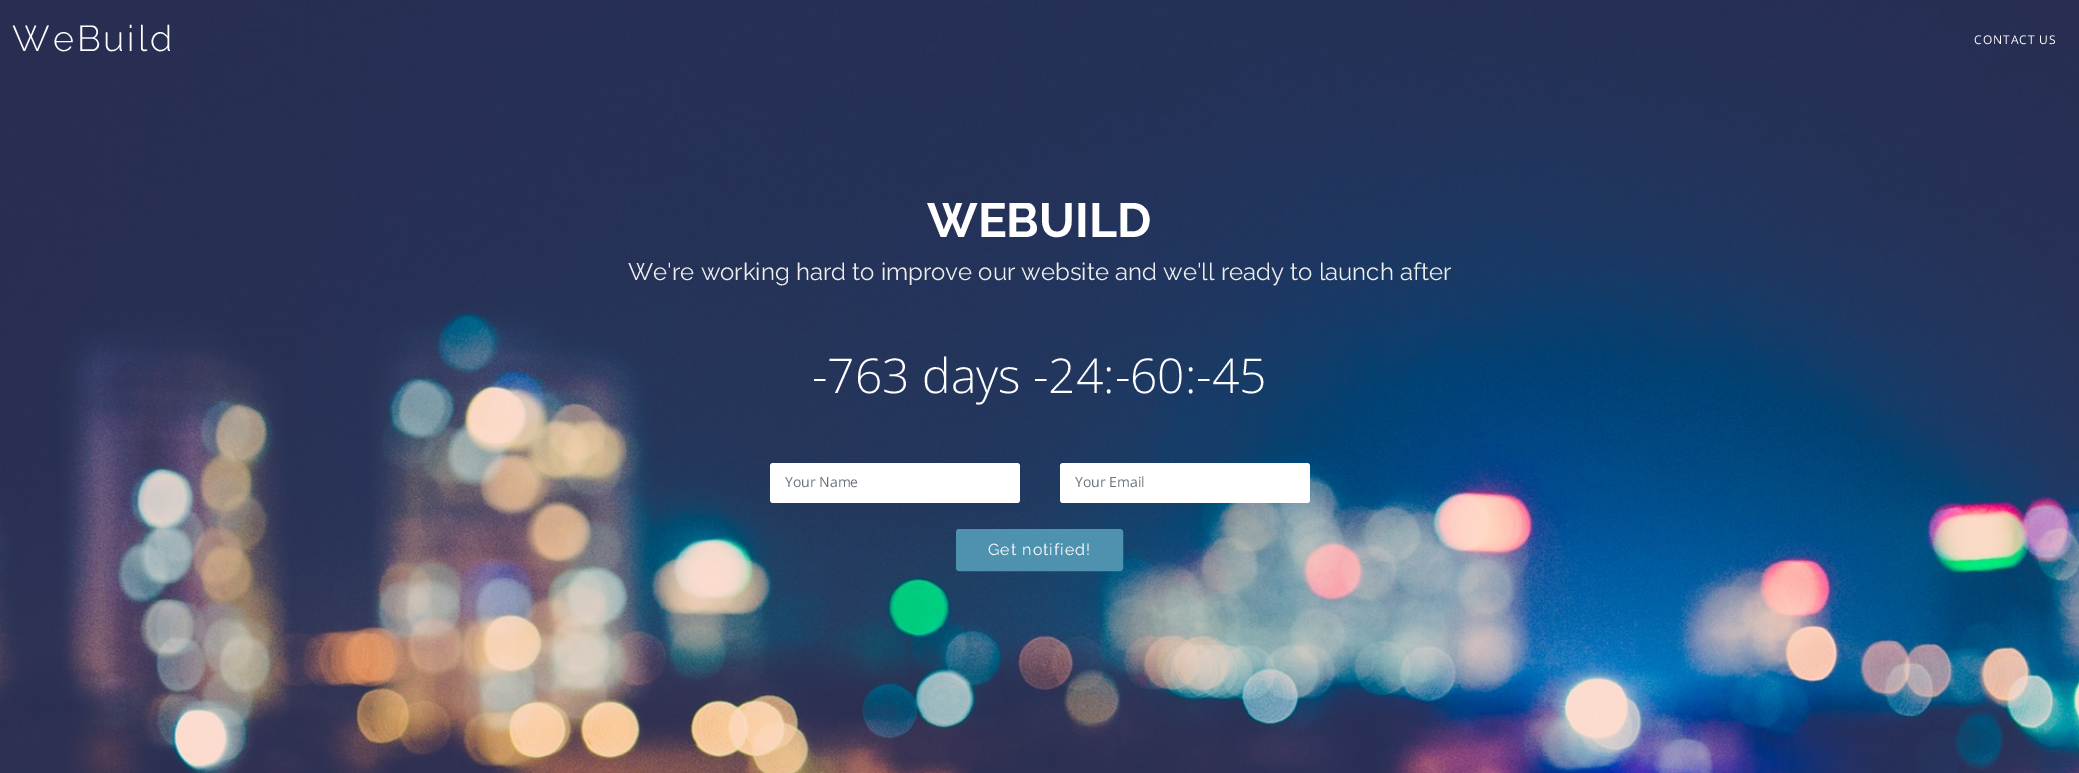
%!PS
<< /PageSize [2079 773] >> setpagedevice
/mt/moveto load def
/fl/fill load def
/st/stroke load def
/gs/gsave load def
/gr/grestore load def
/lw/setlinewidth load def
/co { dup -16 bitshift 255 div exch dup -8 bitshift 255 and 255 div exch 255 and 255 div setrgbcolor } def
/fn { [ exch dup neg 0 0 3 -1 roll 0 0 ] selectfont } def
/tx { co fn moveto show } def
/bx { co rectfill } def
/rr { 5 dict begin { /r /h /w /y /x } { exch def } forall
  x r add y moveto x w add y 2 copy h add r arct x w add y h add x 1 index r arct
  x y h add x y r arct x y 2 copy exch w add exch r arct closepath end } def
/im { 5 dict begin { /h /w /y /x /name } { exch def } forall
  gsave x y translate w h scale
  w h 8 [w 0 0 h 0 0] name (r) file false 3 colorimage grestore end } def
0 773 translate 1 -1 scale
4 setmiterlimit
0 0 2079 773 16#FFFFFF bx
(media/1.raw) 0 0 2079 773 im
770 463 250 40 3 rr fl
1060 463 250 40 3 rr fl
16#4F92AF co
957 530 165 40 2 rr gs fl gr
2 lw
st
/Raleway-Light 36 fn
16#FFFFFF co
12 51 mt 3 0 (WeBuild) ashow
/OpenSans-Regular 12 fn
1974 44 mt 1 0 (CONTACT US) ashow
(WEBUILD) 927 237 /Raleway-Bold 48 16#FFFFFF tx
(We're working hard to improve our website and we'll ready to launch after) 628 280 /Raleway-Regular 24 16#EEEEEE tx
(-763 days -24:-60:-45) 812 393 /OpenSans-Light 48 16#FFFFFF tx
(Your Name) 785 487 /OpenSans-Regular 14 16#6C757D tx
(Your Email) 1075 487 /OpenSans-Regular 14 16#6C757D tx
/Raleway-Regular 16 fn
16#FFFFFF co
988 555 mt 1 0 (Get notified!) ashow
showpage
